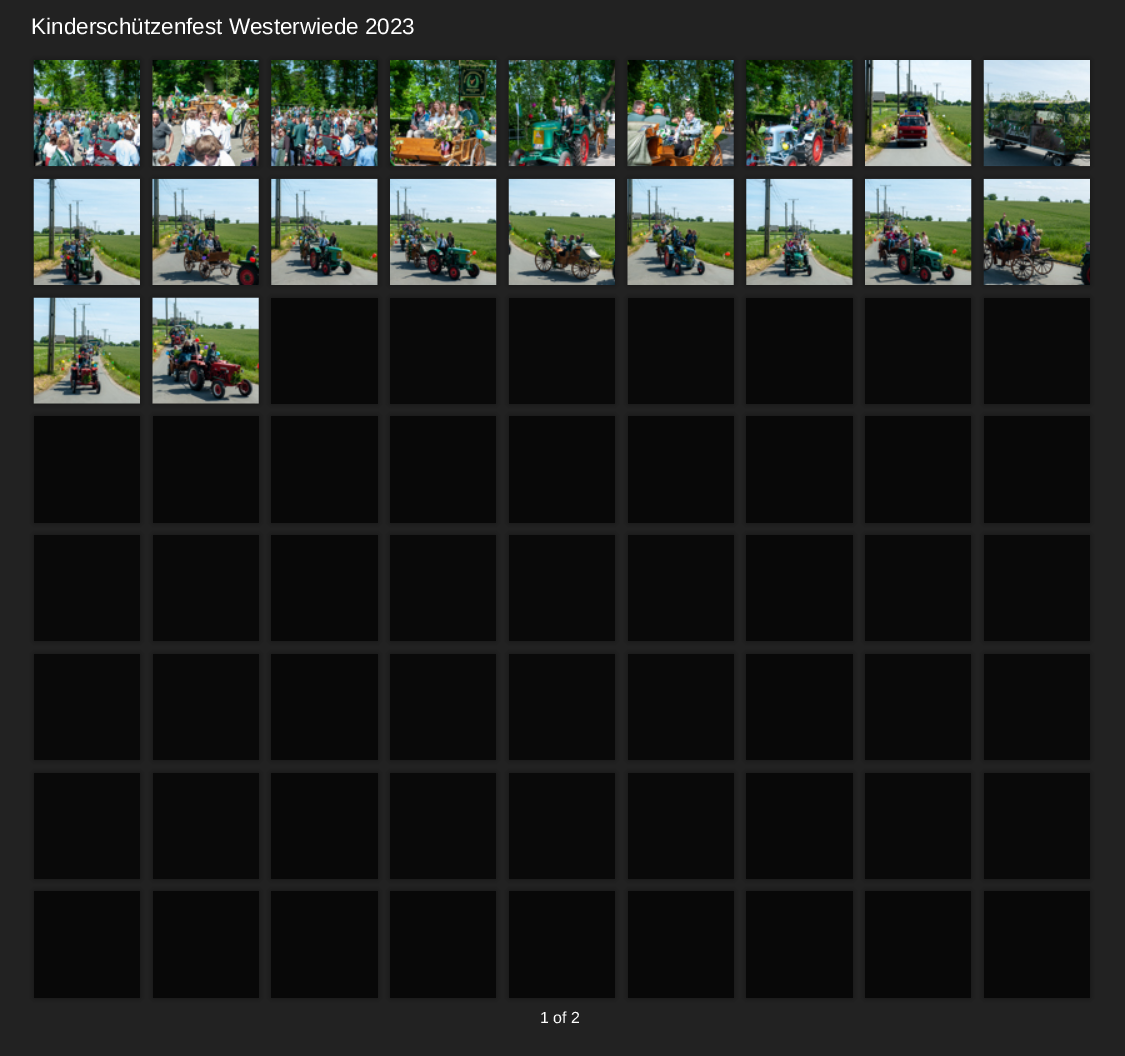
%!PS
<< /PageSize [1125 1056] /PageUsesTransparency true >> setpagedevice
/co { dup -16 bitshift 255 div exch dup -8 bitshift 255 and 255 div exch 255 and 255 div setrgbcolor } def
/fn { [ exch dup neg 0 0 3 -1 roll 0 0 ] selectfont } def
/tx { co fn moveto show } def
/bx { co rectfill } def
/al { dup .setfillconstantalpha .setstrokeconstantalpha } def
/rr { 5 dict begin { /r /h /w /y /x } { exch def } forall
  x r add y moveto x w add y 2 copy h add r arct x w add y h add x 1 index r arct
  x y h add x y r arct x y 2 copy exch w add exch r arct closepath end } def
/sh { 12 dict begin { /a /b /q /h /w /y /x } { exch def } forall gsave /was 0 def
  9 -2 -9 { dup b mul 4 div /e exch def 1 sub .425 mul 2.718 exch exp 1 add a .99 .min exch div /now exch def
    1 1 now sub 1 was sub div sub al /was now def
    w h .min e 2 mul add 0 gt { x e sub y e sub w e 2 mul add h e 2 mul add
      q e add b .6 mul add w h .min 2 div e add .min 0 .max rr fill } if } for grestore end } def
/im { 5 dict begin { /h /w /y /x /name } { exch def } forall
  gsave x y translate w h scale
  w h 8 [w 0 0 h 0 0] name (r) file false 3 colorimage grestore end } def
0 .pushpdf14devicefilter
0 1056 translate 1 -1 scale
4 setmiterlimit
0 0 1125 1056 16#222222 bx
16#000000 co
34 60 106 106 0 3 .4 sh
(media/1.raw) 33 60 107 107 im
153 60 106 106 0 3 .4 sh
(media/2.raw) 152 60 107 107 im
271 60 107 106 0 3 .4 sh
0.5 al
271 60 107 106 16#000000 bx
1 al
(media/3.raw) 271 60 107 107 im
390 60 106 106 0 3 .4 sh
(media/4.raw) 390 60 107 107 im
509 60 106 106 0 3 .4 sh
(media/5.raw) 508 60 107 107 im
628 60 106 106 0 3 .4 sh
(media/6.raw) 627 60 107 107 im
746 60 107 106 0 3 .4 sh
0.5 al
746 60 107 106 16#000000 bx
1 al
(media/7.raw) 746 60 107 107 im
865 60 106 106 0 3 .4 sh
(media/8.raw) 865 60 107 107 im
984 60 106 106 0 3 .4 sh
(media/9.raw) 983 60 107 107 im
34 179 106 106 0 3 .4 sh
(media/10.raw) 33 178 107 107 im
153 179 106 106 0 3 .4 sh
(media/11.raw) 152 178 107 107 im
271 179 107 106 0 3 .4 sh
0.5 al
271 179 107 106 16#000000 bx
1 al
(media/12.raw) 271 178 107 107 im
390 179 106 106 0 3 .4 sh
(media/13.raw) 390 178 107 107 im
509 179 106 106 0 3 .4 sh
(media/14.raw) 508 178 107 107 im
628 179 106 106 0 3 .4 sh
(media/15.raw) 627 178 107 107 im
746 179 107 106 0 3 .4 sh
0.5 al
746 179 107 106 16#000000 bx
1 al
(media/16.raw) 746 178 107 107 im
865 179 106 106 0 3 .4 sh
(media/17.raw) 865 178 107 107 im
984 179 106 106 0 3 .4 sh
(media/18.raw) 983 178 107 107 im
34 298 106 106 0 3 .4 sh
34 403 106 1 16#111111 bx
(media/19.raw) 33 297 107 107 im
16#000000 co
153 298 106 106 0 3 .4 sh
153 298 106 106 16#111111 bx
(media/20.raw) 152 297 107 107 im
16#000000 co
271 298 107 106 0 3 .4 sh
271 298 107 106 16#080808 bx
16#000000 co
390 298 106 106 0 3 .4 sh
390 298 106 106 16#090909 bx
16#000000 co
509 298 106 106 0 3 .4 sh
509 298 106 106 16#090909 bx
16#000000 co
628 298 106 106 0 3 .4 sh
628 298 106 106 16#090909 bx
16#000000 co
746 298 107 106 0 3 .4 sh
746 298 107 106 16#080808 bx
16#000000 co
865 298 106 106 0 3 .4 sh
865 298 106 106 16#090909 bx
16#000000 co
984 298 106 106 0 3 .4 sh
984 298 106 106 16#090909 bx
16#000000 co
34 416 106 107 0 3 .4 sh
34 416 106 107 16#080808 bx
16#000000 co
153 416 106 107 0 3 .4 sh
153 416 106 107 16#080808 bx
16#000000 co
271 416 107 107 0 3 .4 sh
271 416 107 107 16#080808 bx
16#000000 co
390 416 106 107 0 3 .4 sh
390 416 106 107 16#080808 bx
16#000000 co
509 416 106 107 0 3 .4 sh
509 416 106 107 16#080808 bx
16#000000 co
628 416 106 107 0 3 .4 sh
628 416 106 107 16#080808 bx
16#000000 co
746 416 107 107 0 3 .4 sh
746 416 107 107 16#080808 bx
16#000000 co
865 416 106 107 0 3 .4 sh
865 416 106 107 16#080808 bx
16#000000 co
984 416 106 107 0 3 .4 sh
984 416 106 107 16#080808 bx
16#000000 co
34 535 106 106 0 3 .4 sh
34 535 106 106 16#090909 bx
16#000000 co
153 535 106 106 0 3 .4 sh
153 535 106 106 16#090909 bx
16#000000 co
271 535 107 106 0 3 .4 sh
271 535 107 106 16#080808 bx
16#000000 co
390 535 106 106 0 3 .4 sh
390 535 106 106 16#090909 bx
16#000000 co
509 535 106 106 0 3 .4 sh
509 535 106 106 16#090909 bx
16#000000 co
628 535 106 106 0 3 .4 sh
628 535 106 106 16#090909 bx
16#000000 co
746 535 107 106 0 3 .4 sh
746 535 107 106 16#080808 bx
16#000000 co
865 535 106 106 0 3 .4 sh
865 535 106 106 16#090909 bx
16#000000 co
984 535 106 106 0 3 .4 sh
984 535 106 106 16#090909 bx
16#000000 co
34 654 106 106 0 3 .4 sh
34 654 106 106 16#090909 bx
16#000000 co
153 654 106 106 0 3 .4 sh
153 654 106 106 16#090909 bx
16#000000 co
271 654 107 106 0 3 .4 sh
271 654 107 106 16#080808 bx
16#000000 co
390 654 106 106 0 3 .4 sh
390 654 106 106 16#090909 bx
16#000000 co
509 654 106 106 0 3 .4 sh
509 654 106 106 16#090909 bx
16#000000 co
628 654 106 106 0 3 .4 sh
628 654 106 106 16#090909 bx
16#000000 co
746 654 107 106 0 3 .4 sh
746 654 107 106 16#080808 bx
16#000000 co
865 654 106 106 0 3 .4 sh
865 654 106 106 16#090909 bx
16#000000 co
984 654 106 106 0 3 .4 sh
984 654 106 106 16#090909 bx
16#000000 co
34 773 106 106 0 3 .4 sh
34 773 106 106 16#090909 bx
16#000000 co
153 773 106 106 0 3 .4 sh
153 773 106 106 16#090909 bx
16#000000 co
271 773 107 106 0 3 .4 sh
271 773 107 106 16#080808 bx
16#000000 co
390 773 106 106 0 3 .4 sh
390 773 106 106 16#090909 bx
16#000000 co
509 773 106 106 0 3 .4 sh
509 773 106 106 16#090909 bx
16#000000 co
628 773 106 106 0 3 .4 sh
628 773 106 106 16#090909 bx
16#000000 co
746 773 107 106 0 3 .4 sh
746 773 107 106 16#080808 bx
16#000000 co
865 773 106 106 0 3 .4 sh
865 773 106 106 16#090909 bx
16#000000 co
984 773 106 106 0 3 .4 sh
984 773 106 106 16#090909 bx
16#000000 co
34 891 106 107 0 3 .4 sh
34 891 106 107 16#080808 bx
16#000000 co
153 891 106 107 0 3 .4 sh
153 891 106 107 16#080808 bx
16#000000 co
271 891 107 107 0 3 .4 sh
271 891 107 107 16#080808 bx
16#000000 co
390 891 106 107 0 3 .4 sh
390 891 106 107 16#080808 bx
16#000000 co
509 891 106 107 0 3 .4 sh
509 891 106 107 16#080808 bx
16#000000 co
628 891 106 107 0 3 .4 sh
628 891 106 107 16#080808 bx
16#000000 co
746 891 107 107 0 3 .4 sh
746 891 107 107 16#080808 bx
16#000000 co
865 891 106 107 0 3 .4 sh
865 891 106 107 16#080808 bx
16#000000 co
984 891 106 107 0 3 .4 sh
984 891 106 107 16#080808 bx
(Kinderschützenfest Westerwiede 2023) 31 34 /LiberationSans-Regular 22.5 16#FFFFFF tx
(1 of 2) 540 1023 /LiberationSans-Regular 16 16#FFFFFF tx
.poppdf14devicefilter showpage
